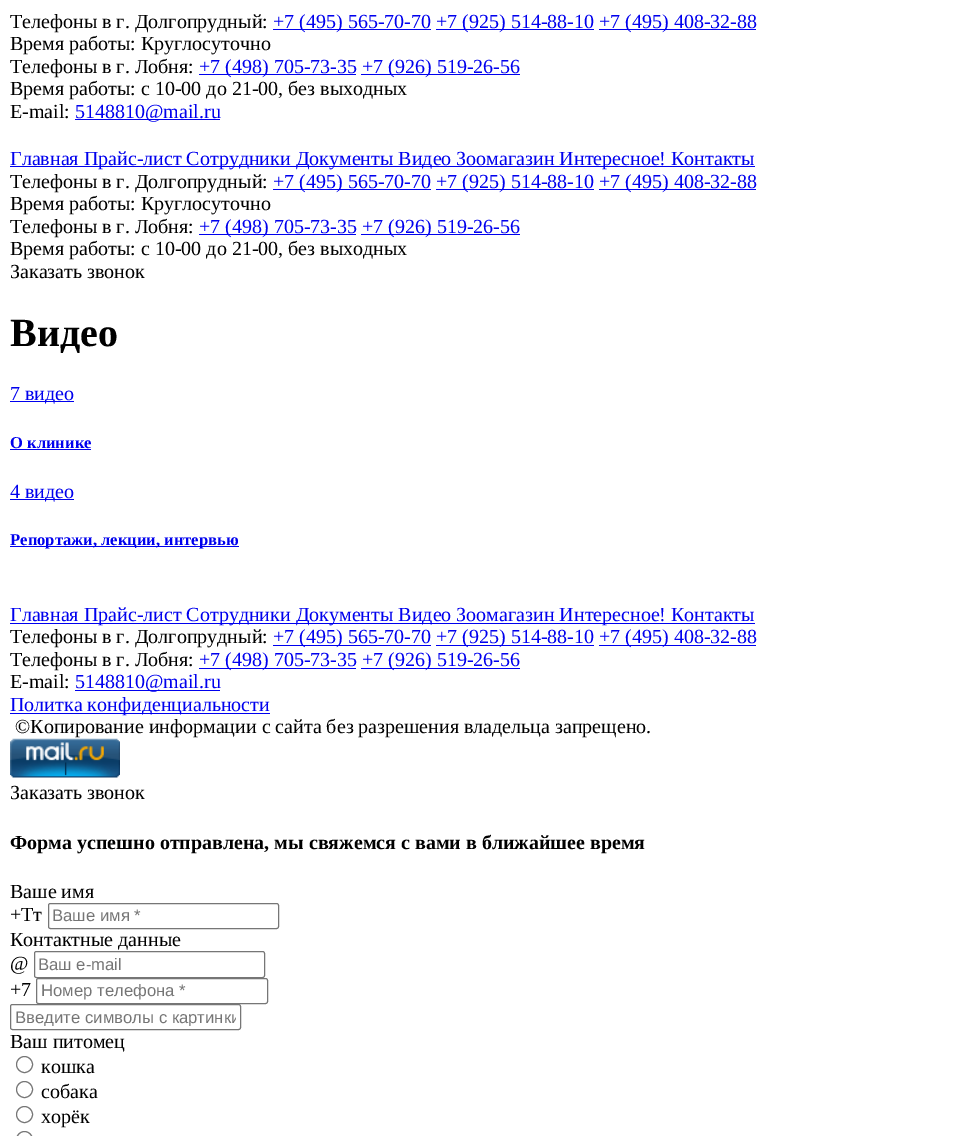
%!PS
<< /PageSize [969 1136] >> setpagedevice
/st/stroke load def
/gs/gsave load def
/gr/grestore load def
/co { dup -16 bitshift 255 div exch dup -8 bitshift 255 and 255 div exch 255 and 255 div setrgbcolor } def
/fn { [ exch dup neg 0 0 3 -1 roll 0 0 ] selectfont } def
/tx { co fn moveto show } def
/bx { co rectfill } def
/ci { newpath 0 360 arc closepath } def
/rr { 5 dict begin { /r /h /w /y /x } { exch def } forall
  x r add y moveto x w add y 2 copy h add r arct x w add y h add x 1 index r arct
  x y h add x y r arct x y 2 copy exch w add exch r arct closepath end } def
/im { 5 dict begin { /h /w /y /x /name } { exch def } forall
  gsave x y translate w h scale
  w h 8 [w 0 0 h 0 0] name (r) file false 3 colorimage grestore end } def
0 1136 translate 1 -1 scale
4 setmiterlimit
0 0 969 1136 16#FFFFFF bx
273 29 158 1 16#0000EE bx
436 29 158 1 16#0000EE bx
599 29 157 1 16#0000EE bx
199 74 157 1 16#0000EE bx
361 74 159 1 16#0000EE bx
75 119 145 1 16#0000EE bx
10 166 745 1 16#0000EE bx
273 189 158 1 16#0000EE bx
436 189 158 1 16#0000EE bx
599 189 157 1 16#0000EE bx
199 234 157 1 16#0000EE bx
361 234 159 1 16#0000EE bx
10 401 64 1 16#0000EE bx
10 449 81 1 16#0000EE bx
10 499 64 1 16#0000EE bx
10 546 229 1 16#0000EE bx
10 623 745 1 16#0000EE bx
273 645 158 1 16#0000EE bx
436 645 158 1 16#0000EE bx
599 645 157 1 16#0000EE bx
199 668 157 1 16#0000EE bx
361 668 159 1 16#0000EE bx
75 690 145 1 16#0000EE bx
10 713 260 1 16#0000EE bx
(media/1.raw) 10 738 110 40 im
16#767676 co
48.5 903.5 230 25 2 rr st
34.5 951.5 230 26 2 rr st
36.5 978.5 231 25 2 rr st
10.5 1004.5 230 25 2 rr st
24.5 1064.5 8 ci st
24.5 1089.5 8 ci st
24.5 1114.5 8 ci st
16.5 1131.5 16 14 8 rr st
(Телефоны в г. Долгопрудный:) 10 28 /LiberationSerif-Regular 20 16#000000 tx
(+7 \(495\) 565-70-70) 273 28 /LiberationSerif-Regular 20 16#0000EE tx
(+7 \(925\) 514-88-10) 436 28 /LiberationSerif-Regular 20 16#0000EE tx
(+7 \(495\) 408-32-88) 599 28 /LiberationSerif-Regular 20 16#0000EE tx
(Время работы: Круглосуточно) 10 50 /LiberationSerif-Regular 20 16#000000 tx
(Телефоны в г. Лобня:) 10 73 /LiberationSerif-Regular 20 16#000000 tx
(+7 \(498\) 705-73-35) 199 73 /LiberationSerif-Regular 20 16#0000EE tx
(+7 \(926\) 519-26-56) 362 73 /LiberationSerif-Regular 20 16#0000EE tx
(Время работы: с 10-00 до 21-00, без выходных) 10 95 /LiberationSerif-Regular 20 16#000000 tx
(E-mail:) 10 118 /LiberationSerif-Regular 20 16#000000 tx
(5148810@mail.ru) 75 118 /LiberationSerif-Regular 20 16#0000EE tx
(Главная Прайс-лист Сотрудники Документы Видео Зоомагазин Интересное! Контакты) 10 165 /LiberationSerif-Regular 20 16#0000EE tx
(Телефоны в г. Долгопрудный:) 10 188 /LiberationSerif-Regular 20 16#000000 tx
(+7 \(495\) 565-70-70) 273 188 /LiberationSerif-Regular 20 16#0000EE tx
(+7 \(925\) 514-88-10) 436 188 /LiberationSerif-Regular 20 16#0000EE tx
(+7 \(495\) 408-32-88) 599 188 /LiberationSerif-Regular 20 16#0000EE tx
(Время работы: Круглосуточно) 10 210 /LiberationSerif-Regular 20 16#000000 tx
(Телефоны в г. Лобня:) 10 233 /LiberationSerif-Regular 20 16#000000 tx
(+7 \(498\) 705-73-35) 199 233 /LiberationSerif-Regular 20 16#0000EE tx
(+7 \(926\) 519-26-56) 362 233 /LiberationSerif-Regular 20 16#0000EE tx
(Время работы: с 10-00 до 21-00, без выходных) 10 255 /LiberationSerif-Regular 20 16#000000 tx
(Заказать звонок) 10 278 /LiberationSerif-Regular 20 16#000000 tx
(Видео) 10 346 /LiberationSerif-Bold 40 16#000000 tx
(7 видео) 10 400 /LiberationSerif-Regular 20 16#0000EE tx
(О клинике) 10 448 /LiberationSerif-Bold 16.6 16#0000EE tx
(4 видео) 10 498 /LiberationSerif-Regular 20 16#0000EE tx
(Репортажи, лекции, интервью) 10 545 /LiberationSerif-Bold 16.6 16#0000EE tx
(Главная Прайс-лист Сотрудники Документы Видео Зоомагазин Интересное! Контакты) 10 621 /LiberationSerif-Regular 20 16#0000EE tx
(Телефоны в г. Долгопрудный:) 10 643 /LiberationSerif-Regular 20 16#000000 tx
(+7 \(495\) 565-70-70) 273 643 /LiberationSerif-Regular 20 16#0000EE tx
(+7 \(925\) 514-88-10) 436 643 /LiberationSerif-Regular 20 16#0000EE tx
(+7 \(495\) 408-32-88) 599 643 /LiberationSerif-Regular 20 16#0000EE tx
(Телефоны в г. Лобня:) 10 666 /LiberationSerif-Regular 20 16#000000 tx
(+7 \(498\) 705-73-35) 199 666 /LiberationSerif-Regular 20 16#0000EE tx
(+7 \(926\) 519-26-56) 362 666 /LiberationSerif-Regular 20 16#0000EE tx
(E-mail:) 10 688 /LiberationSerif-Regular 20 16#000000 tx
(5148810@mail.ru) 75 688 /LiberationSerif-Regular 20 16#0000EE tx
(Политка конфиденциальности) 10 711 /LiberationSerif-Regular 20 16#0000EE tx
(©Копирование информации с сайта без разрешения владельца запрещено.) 15 733 /LiberationSerif-Regular 20 16#000000 tx
(Заказать звонок) 10 799 /LiberationSerif-Regular 20 16#000000 tx
(Форма успешно отправлена, мы свяжемся с вами в ближайшее время) 10 849 /LiberationSerif-Bold 20 16#000000 tx
(Ваше имя) 10 898 /LiberationSerif-Regular 20 16#000000 tx
(+Тт) 10 921 /LiberationSerif-Regular 20 16#000000 tx
(Ваше имя *) 52 921 /LiberationSans-Regular 16.7 16#757575 tx
(Контактные данные) 10 946 /LiberationSerif-Regular 20 16#000000 tx
(@) 10 970 /LiberationSerif-Regular 20 16#000000 tx
(Ваш e-mail) 38 970 /LiberationSans-Regular 16.7 16#757575 tx
(+7) 10 996 /LiberationSerif-Regular 20 16#000000 tx
(Номер телефона *) 41 996 /LiberationSans-Regular 16.7 16#757575 tx
gs
15 1008 221 18 rectclip
(Введите символы с картинки) 15 1023 /LiberationSans-Regular 16.7 16#757575 tx
gr
(Ваш питомец) 10 1048 /LiberationSerif-Regular 20 16#000000 tx
(кошка) 41 1073 /LiberationSerif-Regular 20 16#000000 tx
(собака) 41 1098 /LiberationSerif-Regular 20 16#000000 tx
(хорёк) 41 1123 /LiberationSerif-Regular 20 16#000000 tx
showpage
